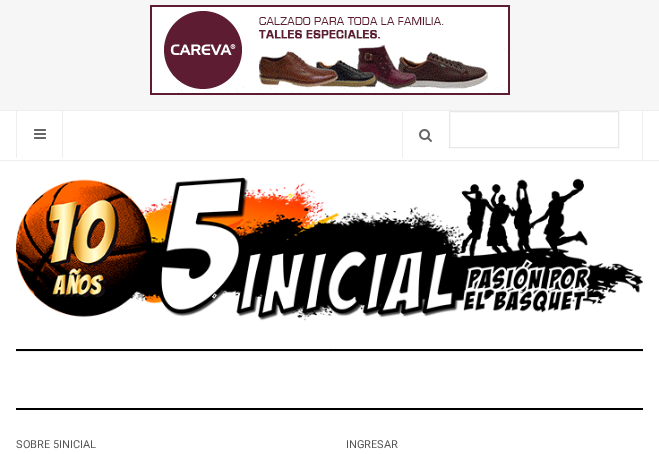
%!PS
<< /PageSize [659 454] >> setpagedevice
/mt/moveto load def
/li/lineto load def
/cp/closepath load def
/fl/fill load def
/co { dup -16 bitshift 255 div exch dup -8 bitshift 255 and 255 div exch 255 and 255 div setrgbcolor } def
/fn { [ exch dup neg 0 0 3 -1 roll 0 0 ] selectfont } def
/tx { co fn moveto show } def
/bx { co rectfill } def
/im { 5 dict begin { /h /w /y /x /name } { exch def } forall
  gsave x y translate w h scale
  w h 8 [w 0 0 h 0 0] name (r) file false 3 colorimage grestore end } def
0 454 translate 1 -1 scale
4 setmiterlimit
0 0 659 454 16#FFFFFF bx
0 0 659 110 16#F6F6F6 bx
(media/1.raw) 150 5 360 90 im
0 110 659 1 16#EEEEEE bx
0 160 659 1 16#EEEEEE bx
62 111 1 47 16#EEEEEE bx
16 111 1 47 16#EEEEEE bx
(media/2.raw) 34 129 12 10 im
642 111 1 49 16#EEEEEE bx
402 158 mt 402 111 li 403 112 li 403 157 li cp fl
(media/3.raw) 419 129 13 13 im
16#E8E8E8 co
449.5 111.5 169 36 rectstroke
(media/4.raw) 16 177 627 144 im
330 348 1 1 16#EEEEEE bx
16 349 627 2 16#000000 bx
16 351 627 1 16#EEEEEE bx
16 408 627 2 16#000000 bx
(SOBRE 5INICIAL) 16 448 /Heebo-Regular 11 16#555555 tx
(INGRESAR) 346 448 /Heebo-Regular 11 16#555555 tx
showpage
